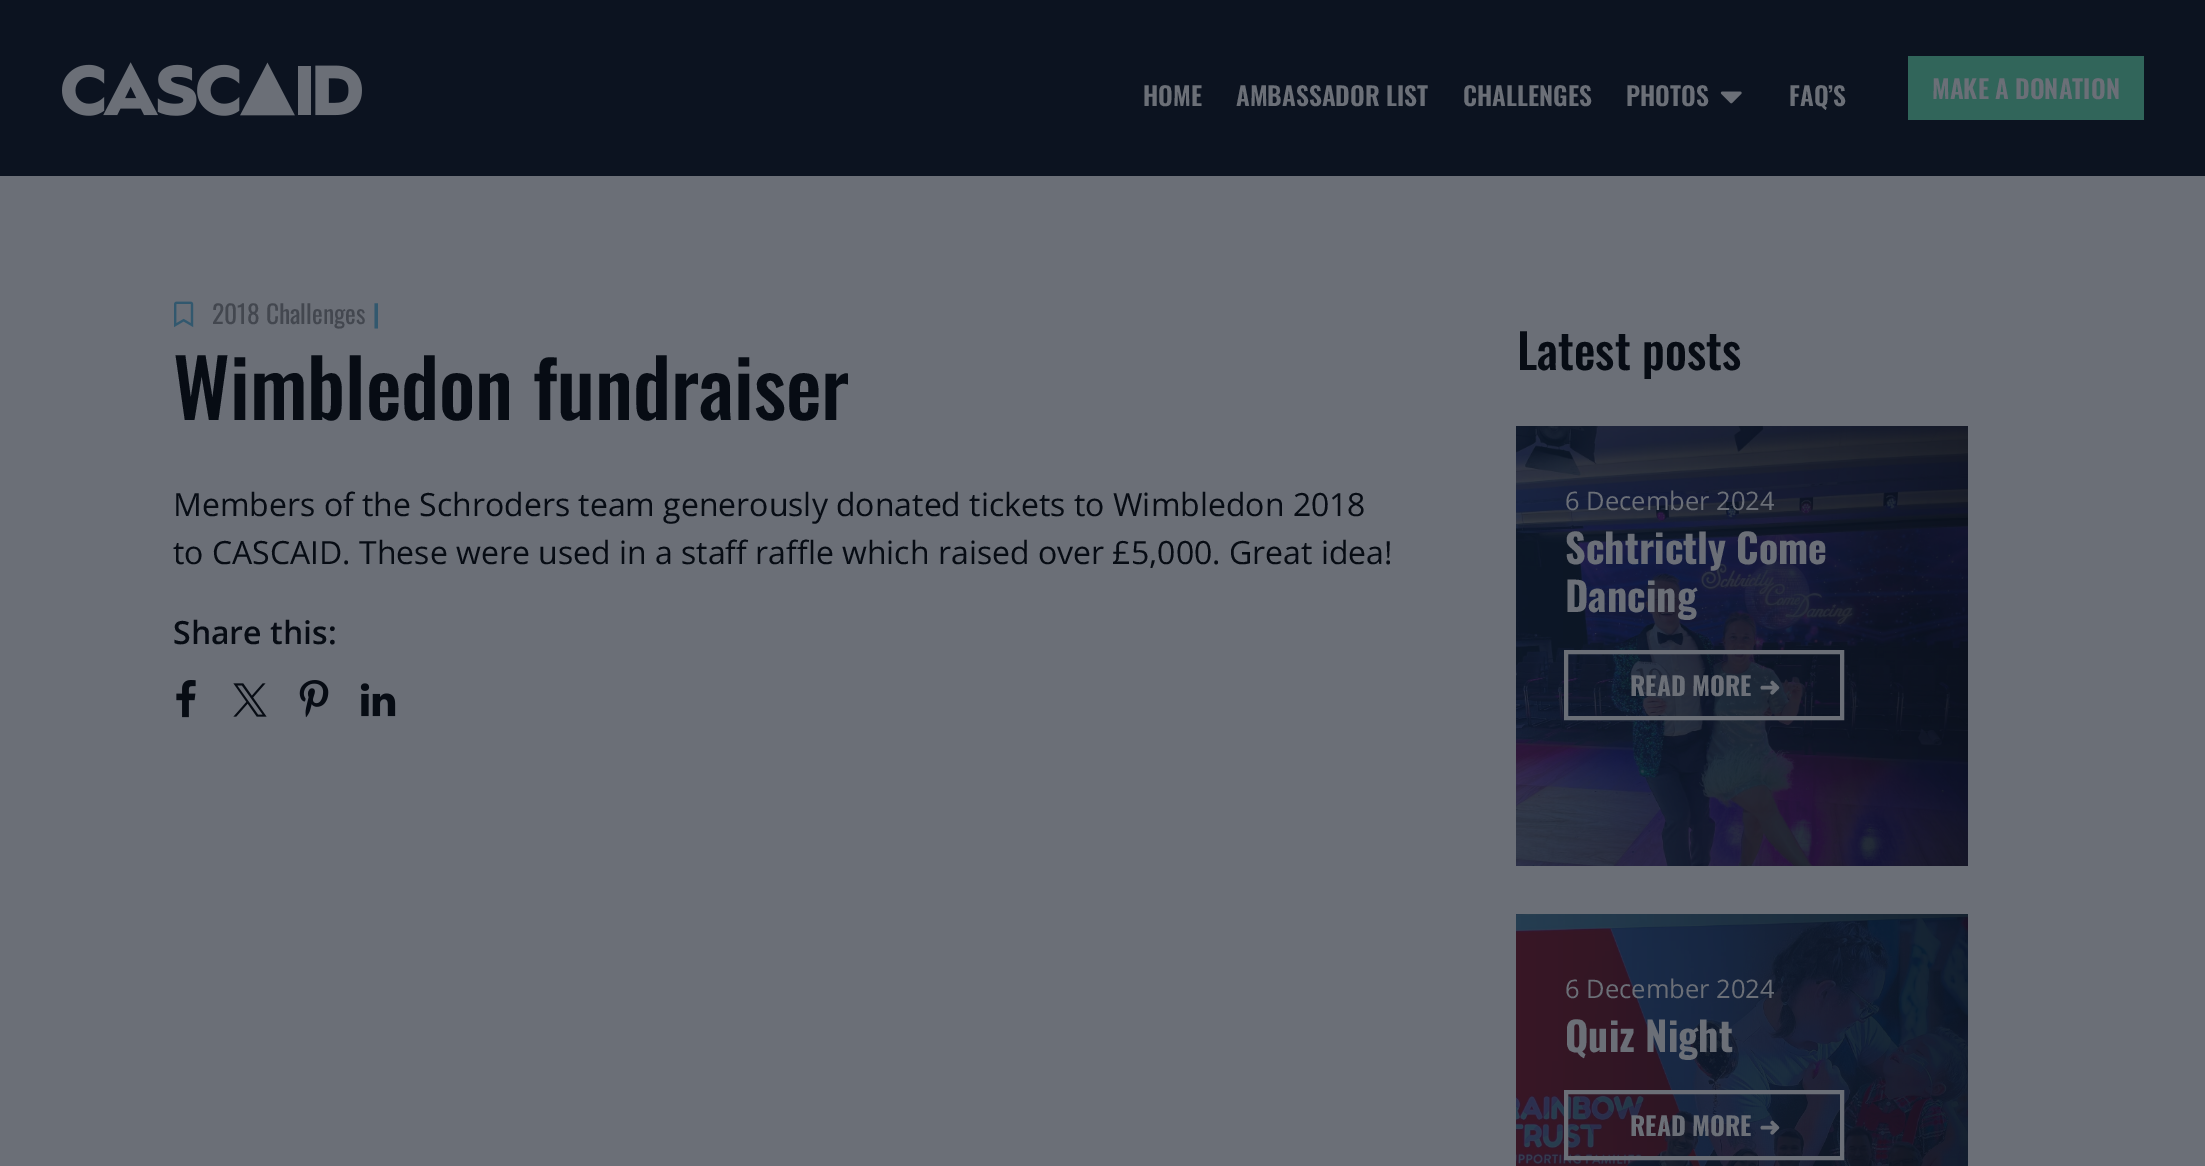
%!PS
<< /PageSize [2205 1166] >> setpagedevice
/lw/setlinewidth load def
/co { dup -16 bitshift 255 div exch dup -8 bitshift 255 and 255 div exch 255 and 255 div setrgbcolor } def
/fn { [ exch dup neg 0 0 3 -1 roll 0 0 ] selectfont } def
/tx { co fn moveto show } def
/bx { co rectfill } def
/im { 5 dict begin { /h /w /y /x /name } { exch def } forall
  gsave x y translate w h scale
  w h 8 [w 0 0 h 0 0] name (r) file false 3 colorimage grestore end } def
0 1166 translate 1 -1 scale
4 setmiterlimit
0 0 2205 1166 16#6B6F77 bx
0 0 2205 176 16#0C1320 bx
(media/1.raw) 62 62 300 54 im
(media/2.raw) 1720 91 22 13 im
1908 56 236 64 16#31655A bx
(media/3.raw) 174 301 20 27 im
(media/4.raw) 176 680 20 38 im
(media/5.raw) 233 683 34 34 im
(media/6.raw) 299 680 30 38 im
(media/7.raw) 360 683 36 34 im
(media/8.raw) 1516 426 452 440 im
16#6B6F77 co
4 lw
1566 652 276 66 rectstroke
(media/9.raw) 1516 914 452 252 im
1566 1092 276 66 rectstroke
(HOME) 1143 106 /Oswald-SemiBold 25.5 16#6B6F77 tx
(AMBASSADOR LIST) 1236 106 /Oswald-SemiBold 25.5 16#6B6F77 tx
(CHALLENGES) 1463 106 /Oswald-SemiBold 25.5 16#6B6F77 tx
(PHOTOS) 1626 106 /Oswald-SemiBold 25.5 16#6B6F77 tx
(FAQ’S) 1789 106 /Oswald-SemiBold 25.5 16#6B6F77 tx
(MAKE A DONATION) 1932 99 /Oswald-SemiBold 25.5 16#6B6F77 tx
(2018 Challenges) 212 324 /Oswald-Regular 25.5 16#43474F tx
(|) 373 324 /Oswald-Bold 25.5 16#32586E tx
(Wimbledon fundraiser) 173 420 /Oswald-Medium 80 16#070C14 tx
(Members of the Schroders team generously donated tickets to Wimbledon 2018) 173 516 /OpenSans-Regular 32 16#070C14 tx
(to CASCAID. These were used in a staff raffle which raised over £5,000. Great idea!) 173 564 /OpenSans-Regular 32 16#070C14 tx
(Share this:) 173 644 /OpenSans-SemiBold 32 16#070C14 tx
(Latest posts) 1517 370 /Oswald-Medium 48 16#070C14 tx
(6 December 2024) 1565 510 /OpenSans-Regular 25.5 16#6B6F77 tx
(Schtrictly Come) 1565 564 /Oswald-Bold 40 16#6B6F77 tx
(Dancing) 1565 612 /Oswald-Bold 40 16#6B6F77 tx
(READ MORE) 1630 696 /Oswald-Bold 25.5 16#6B6F77 tx
(➜) 1759 696 /DejaVuSans-Bold 25.5 16#6B6F77 tx
(6 December 2024) 1565 998 /OpenSans-Regular 25.5 16#6B6F77 tx
(Quiz Night) 1565 1052 /Oswald-Bold 40 16#6B6F77 tx
(READ MORE) 1630 1136 /Oswald-Bold 25.5 16#6B6F77 tx
(➜) 1759 1136 /DejaVuSans-Bold 25.5 16#6B6F77 tx
showpage
